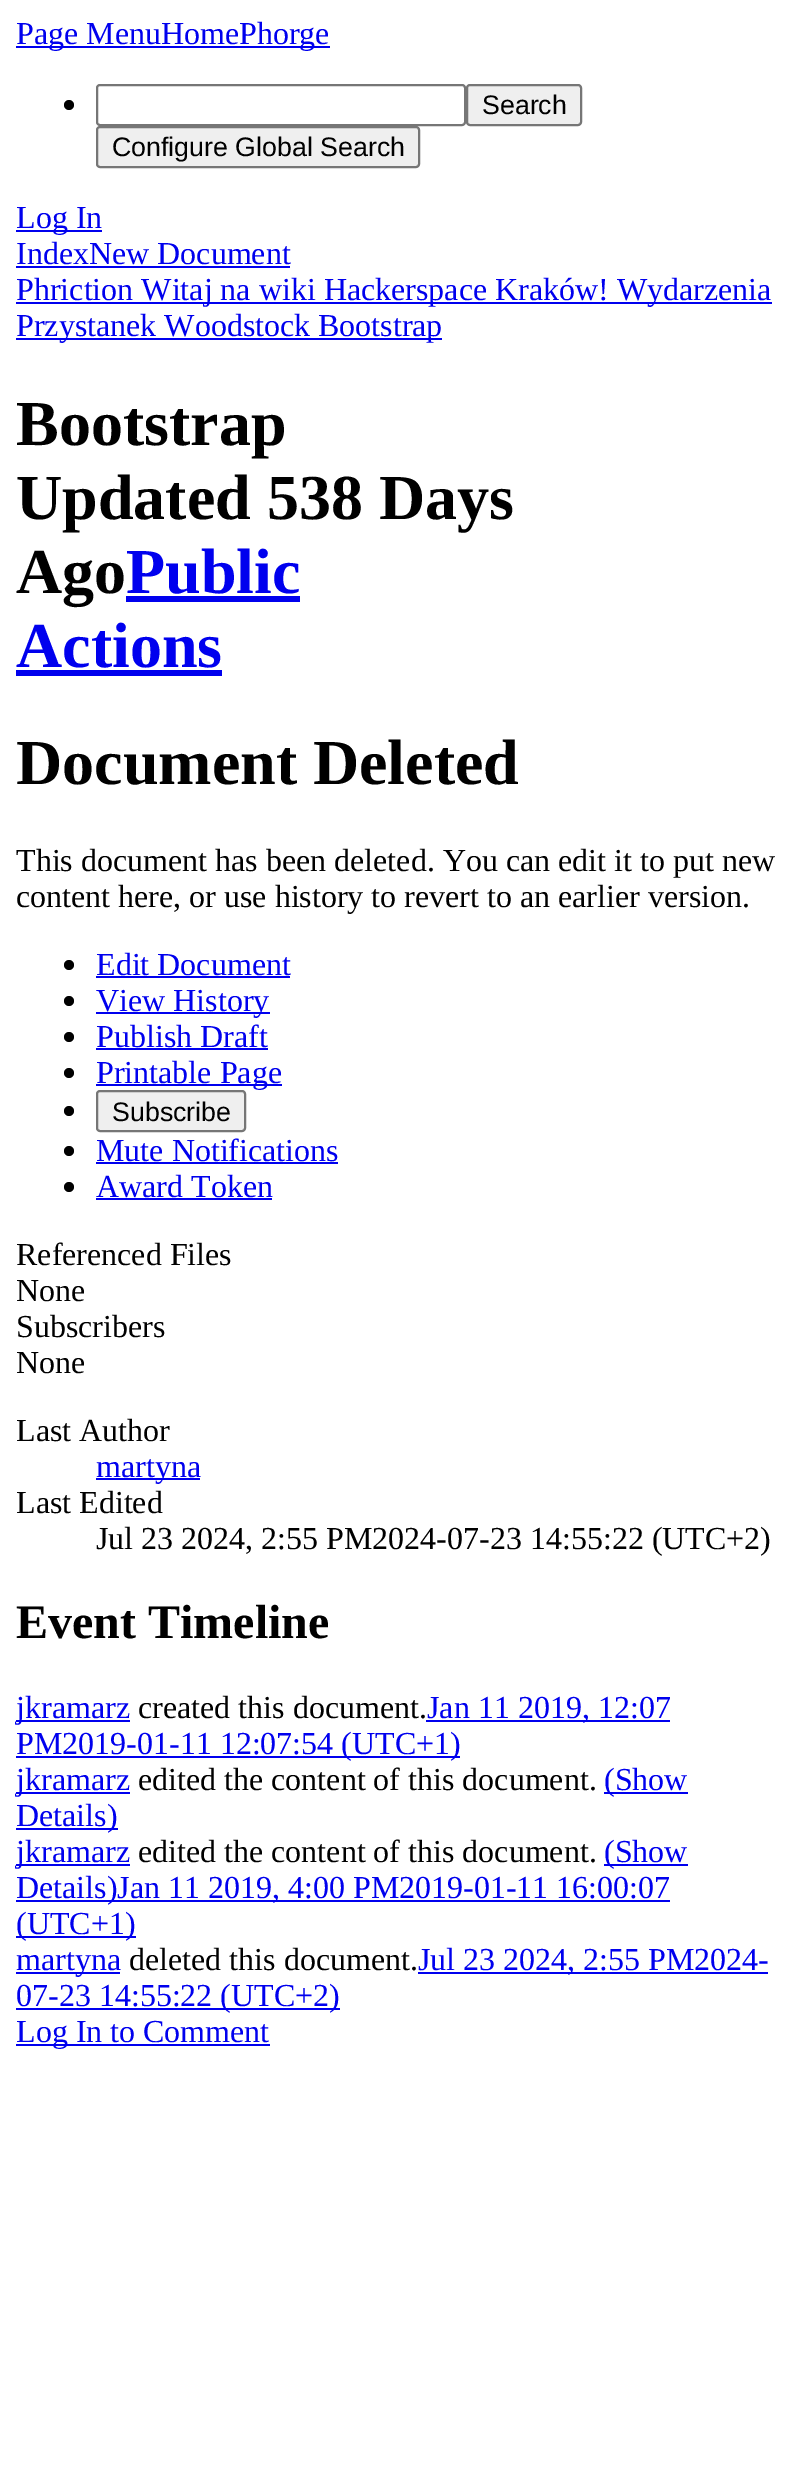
%!PS
<< /PageSize [808 2488] >> setpagedevice
/fl/fill load def
/st/stroke load def
/gs/gsave load def
/gr/grestore load def
/lw/setlinewidth load def
/co { dup -16 bitshift 255 div exch dup -8 bitshift 255 and 255 div exch 255 and 255 div setrgbcolor } def
/fn { [ exch dup neg 0 0 3 -1 roll 0 0 ] selectfont } def
/tx { co fn moveto show } def
/bx { co rectfill } def
/ci { newpath 0 360 arc closepath } def
/rr { 5 dict begin { /r /h /w /y /x } { exch def } forall
  x r add y moveto x w add y 2 copy h add r arct x w add y h add x 1 index r arct
  x y h add x y r arct x y 2 copy exch w add exch r arct closepath end } def
0 2488 translate 1 -1 scale
4 setmiterlimit
0 0 808 2488 16#FFFFFF bx
16 46 144 2 16#0000EE bx
160 46 170 2 16#0000EE bx
16#000000 co
69 105 5 ci fl
16#767676 co
2 lw
97 85 368 40 3 rr st
16#EFEFEF co
467 85 114 40 3 rr gs fl gr
16#767676 co
st
16#EFEFEF co
97 127 322 40 3 rr gs fl gr
16#767676 co
st
16 230 86 2 16#0000EE bx
16 266 274 2 16#0000EE bx
16 302 756 2 16#0000EE bx
16 338 294 2 16#0000EE bx
310 338 132 2 16#0000EE bx
126 596 174 6 16#0000EE bx
16 670 206 6 16#0000EE bx
16#000000 co
69 965 5 ci fl
96 976 194 2 16#0000EE bx
16#000000 co
69 1001 5 ci fl
96 1012 174 2 16#0000EE bx
16#000000 co
69 1037 5 ci fl
96 1048 172 2 16#0000EE bx
16#000000 co
69 1073 5 ci fl
96 1084 186 2 16#0000EE bx
16#000000 co
69 1111 5 ci fl
16#EFEFEF co
97 1091 148 40 3 rr gs fl gr
16#767676 co
st
16#000000 co
69 1151 5 ci fl
96 1162 242 2 16#0000EE bx
16#000000 co
69 1187 5 ci fl
96 1198 176 2 16#0000EE bx
96 1478 104 2 16#0000EE bx
16 1720 114 2 16#0000EE bx
426 1720 244 2 16#0000EE bx
16 1756 444 2 16#0000EE bx
16 1792 114 2 16#0000EE bx
604 1792 84 2 16#0000EE bx
16 1828 102 2 16#0000EE bx
16 1864 114 2 16#0000EE bx
604 1864 84 2 16#0000EE bx
16 1900 654 2 16#0000EE bx
16 1936 120 2 16#0000EE bx
16 1972 104 2 16#0000EE bx
418 1972 350 2 16#0000EE bx
16 2008 324 2 16#0000EE bx
16 2044 254 2 16#0000EE bx
(Page MenuHome) 16 44 /LiberationSerif-Regular 32 16#0000EE tx
(Phorge) 239 44 /LiberationSerif-Regular 32 16#0000EE tx
(Search) 482 114 /LiberationSans-Regular 26.75 16#000000 tx
(Configure Global Search) 112 156 /LiberationSans-Regular 26.75 16#000000 tx
(Log In) 16 228 /LiberationSerif-Regular 32 16#0000EE tx
(IndexNew Document) 16 264 /LiberationSerif-Regular 32 16#0000EE tx
(Phriction Witaj na wiki Hackerspace Kraków! Wydarzenia) 16 300 /LiberationSerif-Regular 32 16#0000EE tx
(Przystanek Woodstock) 16 336 /LiberationSerif-Regular 32 16#0000EE tx
(Bootstrap) 318 336 /LiberationSerif-Regular 32 16#0000EE tx
(Bootstrap) 16 445 /LiberationSerif-Bold 64 16#000000 tx
(Updated 538 Days) 16 519 /LiberationSerif-Bold 64 16#000000 tx
(Ago) 16 593 /LiberationSerif-Bold 64 16#000000 tx
(Public) 126 593 /LiberationSerif-Bold 64 16#0000EE tx
(Actions) 16 667 /LiberationSerif-Bold 64 16#0000EE tx
(Document Deleted) 16 784 /LiberationSerif-Bold 64 16#000000 tx
(This document has been deleted. You can edit it to put new) 16 871 /LiberationSerif-Regular 32 16#000000 tx
(content here, or use history to revert to an earlier version.) 16 907 /LiberationSerif-Regular 32 16#000000 tx
(Edit Document) 96 975 /LiberationSerif-Regular 32 16#0000EE tx
(View History) 96 1011 /LiberationSerif-Regular 32 16#0000EE tx
(Publish Draft) 96 1047 /LiberationSerif-Regular 32 16#0000EE tx
(Printable Page) 96 1083 /LiberationSerif-Regular 32 16#0000EE tx
(Subscribe) 112 1121 /LiberationSans-Regular 26.75 16#000000 tx
(Mute Notifications) 96 1161 /LiberationSerif-Regular 32 16#0000EE tx
(Award Token) 96 1197 /LiberationSerif-Regular 32 16#0000EE tx
(Referenced Files) 16 1265 /LiberationSerif-Regular 32 16#000000 tx
(None) 16 1301 /LiberationSerif-Regular 32 16#000000 tx
(Subscribers) 16 1337 /LiberationSerif-Regular 32 16#000000 tx
(None) 16 1373 /LiberationSerif-Regular 32 16#000000 tx
(Last Author) 16 1441 /LiberationSerif-Regular 32 16#000000 tx
(martyna) 96 1477 /LiberationSerif-Regular 32 16#0000EE tx
(Last Edited) 16 1513 /LiberationSerif-Regular 32 16#000000 tx
(Jul 23 2024, 2:55 PM2024-07-23 14:55:22 \(UTC+2\)) 96 1549 /LiberationSerif-Regular 32 16#000000 tx
(Event Timeline) 16 1638 /LiberationSerif-Bold 48 16#000000 tx
(jkramarz) 16 1718 /LiberationSerif-Regular 32 16#0000EE tx
(created this document.) 138 1718 /LiberationSerif-Regular 32 16#000000 tx
(Jan 11 2019, 12:07) 427 1718 /LiberationSerif-Regular 32 16#0000EE tx
(PM2019-01-11 12:07:54 \(UTC+1\)) 16 1754 /LiberationSerif-Regular 32 16#0000EE tx
(jkramarz) 16 1790 /LiberationSerif-Regular 32 16#0000EE tx
(edited the content of this document.) 138 1790 /LiberationSerif-Regular 32 16#000000 tx
(\(Show) 604 1790 /LiberationSerif-Regular 32 16#0000EE tx
(Details\)) 16 1826 /LiberationSerif-Regular 32 16#0000EE tx
(jkramarz) 16 1862 /LiberationSerif-Regular 32 16#0000EE tx
(edited the content of this document.) 138 1862 /LiberationSerif-Regular 32 16#000000 tx
(\(Show) 604 1862 /LiberationSerif-Regular 32 16#0000EE tx
(Details\)Jan 11 2019, 4:00 PM2019-01-11 16:00:07) 16 1898 /LiberationSerif-Regular 32 16#0000EE tx
(\(UTC+1\)) 16 1934 /LiberationSerif-Regular 32 16#0000EE tx
(martyna) 16 1970 /LiberationSerif-Regular 32 16#0000EE tx
(deleted this document.) 129 1970 /LiberationSerif-Regular 32 16#000000 tx
(Jul 23 2024, 2:55 PM2024-) 418 1970 /LiberationSerif-Regular 32 16#0000EE tx
(07-23 14:55:22 \(UTC+2\)) 16 2006 /LiberationSerif-Regular 32 16#0000EE tx
(Log In to Comment) 16 2042 /LiberationSerif-Regular 32 16#0000EE tx
showpage
